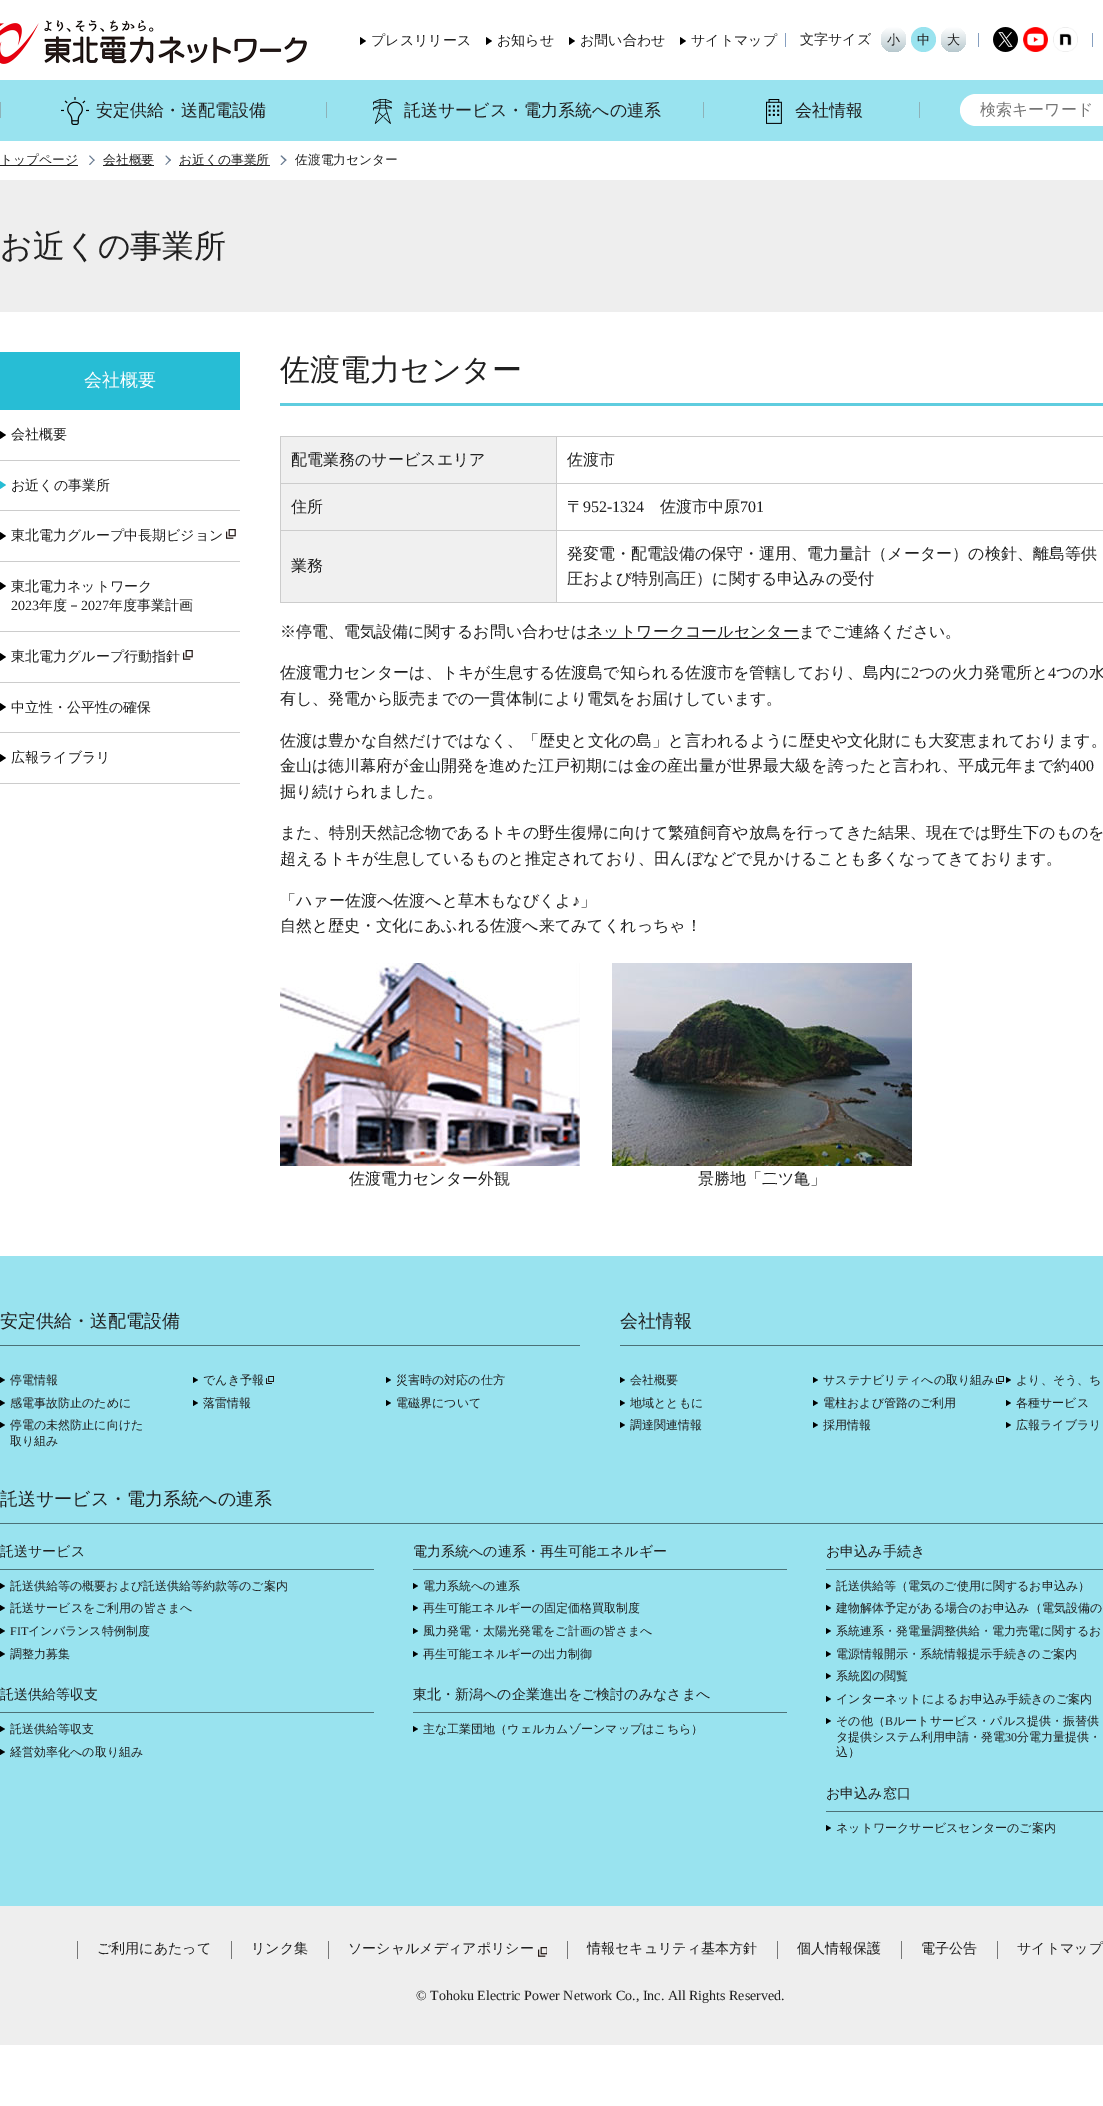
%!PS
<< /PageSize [1103 2106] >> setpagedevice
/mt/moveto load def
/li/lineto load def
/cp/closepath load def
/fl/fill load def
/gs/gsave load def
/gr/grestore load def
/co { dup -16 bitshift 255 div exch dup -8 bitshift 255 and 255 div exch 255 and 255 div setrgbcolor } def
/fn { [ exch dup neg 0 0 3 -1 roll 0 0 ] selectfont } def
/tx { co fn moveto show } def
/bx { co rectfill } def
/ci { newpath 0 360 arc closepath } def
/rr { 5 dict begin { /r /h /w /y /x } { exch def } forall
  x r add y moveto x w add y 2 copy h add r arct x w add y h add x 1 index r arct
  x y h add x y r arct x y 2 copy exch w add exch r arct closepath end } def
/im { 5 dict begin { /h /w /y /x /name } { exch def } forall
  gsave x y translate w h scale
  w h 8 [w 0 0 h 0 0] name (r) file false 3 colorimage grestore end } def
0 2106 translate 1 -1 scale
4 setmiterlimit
0 0 1103 2106 16#FFFFFF bx
(media/1.raw) 0 20 307 44 im
16#000000 co
360 45 mt 360 37 li 366 41 li cp fl
486 45 mt 486 37 li 492 41 li cp fl
569 45 mt 569 37 li 575 41 li cp fl
680 45 mt 680 37 li 686 41 li cp fl
785 33 1 14 16#869FC0 bx
gs 893.5 39.5 12.5 ci clip newpath
<< /ShadingType 2 /ColorSpace /DeviceRGB /Coords [894 27 894 52] /Extend [true true] /Function << /FunctionType 2 /Domain [0 1] /C0 [1 1 1] /C1 [.718 .784 .808] /N 1 >> >> shfill gr
16#99E3EF co
923.5 39.5 12.5 ci fl
gs 953.5 39.5 12.5 ci clip newpath
<< /ShadingType 2 /ColorSpace /DeviceRGB /Coords [954 27 954 52] /Extend [true true] /Function << /FunctionType 2 /Domain [0 1] /C0 [1 1 1] /C1 [.718 .784 .808] /N 1 >> >> shfill gr
0 80 1103 61 16#99E3EF bx
0 102 1 16 16#8DB2B8 bx
(media/2.raw) 61 97 28 28 im
326 102 1 16 16#8DB2B8 bx
(media/3.raw) 373 99 19 25 im
703 102 1 16 16#8DB2B8 bx
(media/4.raw) 766 99 16 25 im
919 102 1 16 16#8DB2B8 bx
978 33 1 14 16#869FC0 bx
(media/5.raw) 993 27 25 25 im
(media/6.raw) 1023 27 25 25 im
(media/7.raw) 1053 27 25 25 im
1092 33 1 14 16#869FC0 bx
16#FFFFFF co
960 94 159 32 16 rr fl
0 165 78 1 16#202020 bx
16#697B91 co
90 155.5 mt 94.5 160 li 94 161 li 89 156 li cp fl
94 159.5 mt 94.5 160 li 90 165 li 89 164.5 li cp fl
103 165 51 1 16#202020 bx
16#697B91 co
166 155.5 mt 171 160 li 170 161 li 165.5 156 li cp fl
170 159.5 mt 171 160 li 166 165 li 165.5 164.5 li cp fl
179 165 91 1 16#202020 bx
16#697B91 co
281.5 155.5 mt 286.5 160 li 285.5 161 li 280.5 156 li cp fl
285.5 159.5 mt 286.5 160 li 281.5 165 li 280.5 164.5 li cp fl
0 180 1103 132 16#EEEEEE bx
0 352 240 58 16#27BDD5 bx
0 460 240 1 16#CCCCCC bx
16#000000 co
0 439 mt 0 431 li 6 435 li cp fl
0 510 240 1 16#CCCCCC bx
16#27BDD5 co
0 489 mt 0 481 li 6 485 li cp fl
0 561 240 1 16#CCCCCC bx
16#000000 co
0 540 mt 0 532 li 6 536 li cp fl
(media/8.raw) 226 529 10 10 im
0 631 240 1 16#CCCCCC bx
16#000000 co
0 590 mt 0 582 li 6 586 li cp fl
0 682 240 1 16#CCCCCC bx
16#000000 co
0 661 mt 0 653 li 6 657 li cp fl
(media/8.raw) 183 650 10 10 im
0 732 240 1 16#CCCCCC bx
16#000000 co
0 711 mt 0 703 li 6 707 li cp fl
0 783 240 1 16#CCCCCC bx
16#000000 co
0 762 mt 0 754 li 6 758 li cp fl
280 403 823 3 16#5FCDDF bx
281 437 275 46 16#F0F0F0 bx
556 436 547 1 16#CCCCCC bx
556 483 547 1 16#CCCCCC bx
556 530 547 1 16#CCCCCC bx
556 602 547 1 16#CCCCCC bx
556 530 1 73 16#CCCCCC bx
280 530 277 1 16#CCCCCC bx
556 483 1 48 16#CCCCCC bx
280 483 277 1 16#CCCCCC bx
556 436 1 48 16#CCCCCC bx
280 436 277 1 16#CCCCCC bx
280 602 277 1 16#CCCCCC bx
280 530 1 73 16#CCCCCC bx
280 483 1 48 16#CCCCCC bx
280 436 1 48 16#CCCCCC bx
281 484 275 46 16#F0F0F0 bx
281 531 275 71 16#F0F0F0 bx
587 638 212 1 16#202020 bx
(media/9.raw) 280 963 300 203 im
(media/10.raw) 612 963 300 203 im
0 1256 1103 650 16#99E3EF bx
0 1345 580 1 16#4C7177 bx
16#000000 co
0 1383 mt 0 1377 li 5 1380 li cp fl
193 1383 mt 193 1377 li 198 1380 li cp fl
(media/11.raw) 266 1376 8 8 im
386 1383 mt 386 1377 li 391 1380 li cp fl
0 1406 mt 0 1400 li 5 1403 li cp fl
193 1406 mt 193 1400 li 198 1403 li cp fl
386 1406 mt 386 1400 li 391 1403 li cp fl
0 1428 mt 0 1422 li 5 1425 li cp fl
620 1345 483 1 16#4C7177 bx
16#000000 co
620 1383 mt 620 1377 li 625 1380 li cp fl
813 1383 mt 813 1377 li 818 1380 li cp fl
(media/11.raw) 996 1376 8 8 im
1006 1383 mt 1006 1377 li 1011 1380 li cp fl
620 1406 mt 620 1400 li 625 1403 li cp fl
813 1406 mt 813 1400 li 818 1403 li cp fl
1006 1406 mt 1006 1400 li 1011 1403 li cp fl
620 1428 mt 620 1422 li 625 1425 li cp fl
813 1428 mt 813 1422 li 818 1425 li cp fl
1006 1428 mt 1006 1422 li 1011 1425 li cp fl
0 1523 1103 1 16#4C7177 bx
0 1569 374 1 16#4C7177 bx
16#000000 co
0 1589 mt 0 1583 li 5 1586 li cp fl
0 1611 mt 0 1605 li 5 1608 li cp fl
0 1634 mt 0 1628 li 5 1631 li cp fl
0 1657 mt 0 1651 li 5 1654 li cp fl
0 1712 374 1 16#4C7177 bx
16#000000 co
0 1732 mt 0 1726 li 5 1729 li cp fl
0 1755 mt 0 1749 li 5 1752 li cp fl
413 1569 374 1 16#4C7177 bx
16#000000 co
413 1589 mt 413 1583 li 418 1586 li cp fl
413 1611 mt 413 1605 li 418 1608 li cp fl
413 1634 mt 413 1628 li 418 1631 li cp fl
413 1657 mt 413 1651 li 418 1654 li cp fl
413 1712 374 1 16#4C7177 bx
16#000000 co
413 1732 mt 413 1726 li 418 1729 li cp fl
826 1569 277 1 16#4C7177 bx
16#000000 co
826 1589 mt 826 1583 li 831 1586 li cp fl
826 1611 mt 826 1605 li 831 1608 li cp fl
826 1634 mt 826 1628 li 831 1631 li cp fl
826 1657 mt 826 1651 li 831 1654 li cp fl
826 1679 mt 826 1673 li 831 1676 li cp fl
826 1702 mt 826 1696 li 831 1699 li cp fl
826 1724 mt 826 1718 li 831 1721 li cp fl
826 1811 277 1 16#4C7177 bx
16#000000 co
826 1831 mt 826 1825 li 831 1828 li cp fl
0 1906 1103 139 16#EEEEEE bx
77 1941 1 18 16#777777 bx
231 1941 1 18 16#777777 bx
328 1941 1 18 16#777777 bx
(media/12.raw) 538 1947 9 10 im
567 1941 1 18 16#777777 bx
777 1941 1 18 16#777777 bx
901 1941 1 18 16#777777 bx
997 1941 1 18 16#777777 bx
(プレスリリース) 371 45 /WenQuanYiZenHei-Medium 14 16#202020 tx
(お知らせ) 497 45 /WenQuanYiZenHei-Medium 14 16#202020 tx
(お問い合わせ) 580 45 /WenQuanYiZenHei-Medium 14 16#202020 tx
(サイトマップ) 691 45 /WenQuanYiZenHei-Medium 14 16#202020 tx
(文字サイズ) 800 44 /WenQuanYiZenHei-Medium 14 16#202020 tx
(小) 887 44 /WenQuanYiZenHei-Medium 13 16#202020 tx
(中) 917 44 /WenQuanYiZenHei-Medium 13 16#202020 tx
(大) 947 44 /WenQuanYiZenHei-Medium 13 16#202020 tx
(安定供給・送配電設備) 96 116 /WenQuanYiZenHei-Medium 17 16#202020 tx
(託送サービス・電力系統への連系) 404 116 /WenQuanYiZenHei-Medium 17 16#202020 tx
(会社情報) 795 116 /WenQuanYiZenHei-Medium 17 16#202020 tx
(検索キーワード) 980 115 /WenQuanYiZenHei-Medium 16 16#757575 tx
(トップページ) 0 164 /WenQuanYiZenHei-Medium 12.75 16#202020 tx
(会社概要) 103 164 /WenQuanYiZenHei-Medium 12.75 16#202020 tx
(お近くの事業所) 179 164 /WenQuanYiZenHei-Medium 12.75 16#202020 tx
(佐渡電力センター) 295 164 /WenQuanYiZenHei-Medium 12.75 16#202020 tx
(お近くの事業所) 0 257 /WenQuanYiZenHei-Medium 32 16#202020 tx
(会社概要) 84 386 /WenQuanYiZenHei-Medium 18 16#FFFFFF tx
(会社概要) 11 439 /WenQuanYiZenHei-Medium 14 16#202020 tx
(お近くの事業所) 11 490 /WenQuanYiZenHei-Medium 14 16#202020 tx
(東北電力グループ中長期ビジョン) 11 540 /WenQuanYiZenHei-Medium 14 16#202020 tx
(東北電力ネットワーク) 11 591 /WenQuanYiZenHei-Medium 14 16#202020 tx
(2023) 11 610 /LiberationSerif-Regular 14 16#202020 tx
(年度－) 39 610 /WenQuanYiZenHei-Medium 14 16#202020 tx
(2027) 81 610 /LiberationSerif-Regular 14 16#202020 tx
(年度事業計画) 109 610 /WenQuanYiZenHei-Medium 14 16#202020 tx
(東北電力グループ行動指針) 11 661 /WenQuanYiZenHei-Medium 14 16#202020 tx
(中立性・公平性の確保) 11 712 /WenQuanYiZenHei-Medium 14 16#202020 tx
(広報ライブラリ) 11 762 /WenQuanYiZenHei-Medium 14 16#202020 tx
(佐渡電力センター) 280 380 /WenQuanYiZenHei-Medium 30 16#202020 tx
(配電業務のサービスエリア) 291 465 /WenQuanYiZenHei-Medium 16 16#202020 tx
(佐渡市) 567 465 /WenQuanYiZenHei-Medium 16 16#202020 tx
(住所) 291 512 /WenQuanYiZenHei-Medium 16 16#202020 tx
(〒) 567 512 /WenQuanYiZenHei-Medium 16 16#202020 tx
(952-1324) 583 512 /LiberationSerif-Regular 16 16#202020 tx
(佐渡市中原) 660 512 /WenQuanYiZenHei-Medium 16 16#202020 tx
(701) 740 512 /LiberationSerif-Regular 16 16#202020 tx
(業務) 291 571 /WenQuanYiZenHei-Medium 16 16#202020 tx
(発変電・配電設備の保守・運用、電力量計（メーター）の検針、離島等供) 567 559 /WenQuanYiZenHei-Medium 16 16#202020 tx
(圧および特別高圧）に関する申込みの受付) 567 584 /WenQuanYiZenHei-Medium 16 16#202020 tx
(※停電、電気設備に関するお問い合わせは) 280 637 /WenQuanYiZenHei-Medium 16 16#202020 tx
(ネットワークコールセンターまでご連絡ください。) 587 637 /WenQuanYiZenHei-Medium 16 16#202020 tx
(佐渡電力センターは、トキが生息する佐渡島で知られる佐渡市を管轄しており、島内に) 280 678 /WenQuanYiZenHei-Medium 16 16#202020 tx
(2) 911 678 /LiberationSerif-Regular 16 16#202020 tx
(つの火力発電所と) 919 678 /WenQuanYiZenHei-Medium 16 16#202020 tx
(4) 1048 678 /LiberationSerif-Regular 16 16#202020 tx
(つの水) 1056 678 /WenQuanYiZenHei-Medium 16 16#202020 tx
(有し、発電から販売までの一貫体制により電気をお届けしています。) 280 704 /WenQuanYiZenHei-Medium 16 16#202020 tx
(佐渡は豊かな自然だけではなく、「歴史と文化の島」と言われるように歴史や文化財にも大変恵まれております。) 280 746 /WenQuanYiZenHei-Medium 16 16#202020 tx
(金山は徳川幕府が金山開発を進めた江戸初期には金の産出量が世界最大級を誇ったと言われ、平成元年まで約) 280 771 /WenQuanYiZenHei-Medium 16 16#202020 tx
(400) 1070 771 /LiberationSerif-Regular 16 16#202020 tx
(掘り続けられました。) 280 797 /WenQuanYiZenHei-Medium 16 16#202020 tx
(また、特別天然記念物であるトキの野生復帰に向けて繁殖飼育や放鳥を行ってきた結果、現在では野生下のものを) 280 838 /WenQuanYiZenHei-Medium 16 16#202020 tx
(超えるトキが生息しているものと推定されており、田んぼなどで見かけることも多くなってきております。) 280 864 /WenQuanYiZenHei-Medium 16 16#202020 tx
(「ハァー佐渡へ佐渡へと草木もなびくよ) 280 906 /WenQuanYiZenHei-Medium 16 16#202020 tx
(♪) 572 906 /LiberationSerif-Regular 16 16#202020 tx
(」) 580 906 /WenQuanYiZenHei-Medium 16 16#202020 tx
(自然と歴史・文化にあふれる佐渡へ来てみてくれっちゃ！) 280 931 /WenQuanYiZenHei-Medium 16 16#202020 tx
(佐渡電力センター外観) 349 1184 /WenQuanYiZenHei-Medium 16 16#202020 tx
(景勝地「二ツ亀」) 698 1184 /WenQuanYiZenHei-Medium 16 16#202020 tx
(安定供給・送配電設備) 0 1327 /WenQuanYiZenHei-Medium 18 16#202020 tx
(停電情報) 10 1384 /WenQuanYiZenHei-Medium 12 16#202020 tx
(でんき予報) 203 1384 /WenQuanYiZenHei-Medium 12 16#202020 tx
(災害時の対応の仕方) 396 1384 /WenQuanYiZenHei-Medium 12 16#202020 tx
(感電事故防止のために) 10 1407 /WenQuanYiZenHei-Medium 12 16#202020 tx
(落雷情報) 203 1407 /WenQuanYiZenHei-Medium 12 16#202020 tx
(電磁界について) 396 1407 /WenQuanYiZenHei-Medium 12 16#202020 tx
(停電の未然防止に向けた) 10 1429 /WenQuanYiZenHei-Medium 12 16#202020 tx
(取り組み) 10 1445 /WenQuanYiZenHei-Medium 12 16#202020 tx
(会社情報) 620 1327 /WenQuanYiZenHei-Medium 18 16#202020 tx
(会社概要) 630 1384 /WenQuanYiZenHei-Medium 12 16#202020 tx
(サステナビリティへの取り組み) 823 1384 /WenQuanYiZenHei-Medium 12 16#202020 tx
(より、そう、ち) 1016 1384 /WenQuanYiZenHei-Medium 12 16#202020 tx
(地域とともに) 630 1407 /WenQuanYiZenHei-Medium 12 16#202020 tx
(電柱および管路のご利用) 823 1407 /WenQuanYiZenHei-Medium 12 16#202020 tx
(各種サービス) 1016 1407 /WenQuanYiZenHei-Medium 12 16#202020 tx
(調達関連情報) 630 1429 /WenQuanYiZenHei-Medium 12 16#202020 tx
(採用情報) 823 1429 /WenQuanYiZenHei-Medium 12 16#202020 tx
(広報ライブラリ) 1016 1429 /WenQuanYiZenHei-Medium 12 16#202020 tx
(託送サービス・電力系統への連系) 0 1505 /WenQuanYiZenHei-Medium 18 16#202020 tx
(託送サービス) 0 1556 /WenQuanYiZenHei-Medium 14 16#202020 tx
(託送供給等の概要および託送供給等約款等のご案内) 10 1590 /WenQuanYiZenHei-Medium 12 16#202020 tx
(託送サービスをご利用の皆さまへ) 10 1612 /WenQuanYiZenHei-Medium 12 16#202020 tx
(FIT) 10 1635 /LiberationSerif-Regular 12 16#202020 tx
(インバランス特例制度) 28 1635 /WenQuanYiZenHei-Medium 12 16#202020 tx
(調整力募集) 10 1658 /WenQuanYiZenHei-Medium 12 16#202020 tx
(託送供給等収支) 0 1699 /WenQuanYiZenHei-Medium 14 16#202020 tx
(託送供給等収支) 10 1733 /WenQuanYiZenHei-Medium 12 16#202020 tx
(経営効率化への取り組み) 10 1756 /WenQuanYiZenHei-Medium 12 16#202020 tx
(電力系統への連系・再生可能エネルギー) 413 1556 /WenQuanYiZenHei-Medium 14 16#202020 tx
(電力系統への連系) 423 1590 /WenQuanYiZenHei-Medium 12 16#202020 tx
(再生可能エネルギーの固定価格買取制度) 423 1612 /WenQuanYiZenHei-Medium 12 16#202020 tx
(風力発電・太陽光発電をご計画の皆さまへ) 423 1635 /WenQuanYiZenHei-Medium 12 16#202020 tx
(再生可能エネルギーの出力制御) 423 1658 /WenQuanYiZenHei-Medium 12 16#202020 tx
(東北・新潟への企業進出をご検討のみなさまへ) 413 1699 /WenQuanYiZenHei-Medium 14 16#202020 tx
(主な工業団地（ウェルカムゾーンマップはこちら）) 423 1733 /WenQuanYiZenHei-Medium 12 16#202020 tx
(お申込み手続き) 826 1556 /WenQuanYiZenHei-Medium 14 16#202020 tx
(託送供給等（電気のご使用に関するお申込み）) 836 1590 /WenQuanYiZenHei-Medium 12 16#202020 tx
(建物解体予定がある場合のお申込み（電気設備の) 836 1612 /WenQuanYiZenHei-Medium 12 16#202020 tx
(系統連系・発電量調整供給・電力売電に関するお) 836 1635 /WenQuanYiZenHei-Medium 12 16#202020 tx
(電源情報開示・系統情報提示手続きのご案内) 836 1658 /WenQuanYiZenHei-Medium 12 16#202020 tx
(系統図の閲覧) 836 1680 /WenQuanYiZenHei-Medium 12 16#202020 tx
(インターネットによるお申込み手続きのご案内) 836 1703 /WenQuanYiZenHei-Medium 12 16#202020 tx
(その他（) 836 1725 /WenQuanYiZenHei-Medium 12 16#202020 tx
(B) 885 1725 /LiberationSerif-Regular 12 16#202020 tx
(ルートサービス・パルス提供・振替供) 893 1725 /WenQuanYiZenHei-Medium 12 16#202020 tx
(タ提供システム利用申請・発電) 836 1741 /WenQuanYiZenHei-Medium 12 16#202020 tx
(30) 1005 1741 /LiberationSerif-Regular 12 16#202020 tx
(分電力量提供・) 1017 1741 /WenQuanYiZenHei-Medium 12 16#202020 tx
(込）) 836 1756 /WenQuanYiZenHei-Medium 12 16#202020 tx
(お申込み窓口) 826 1798 /WenQuanYiZenHei-Medium 14 16#202020 tx
(ネットワークサービスセンターのご案内) 836 1832 /WenQuanYiZenHei-Medium 12 16#202020 tx
(ご利用にあたって) 97 1953 /WenQuanYiZenHei-Medium 14 16#202020 tx
(リンク集) 251 1953 /WenQuanYiZenHei-Medium 14 16#202020 tx
(ソーシャルメディアポリシー) 348 1953 /WenQuanYiZenHei-Medium 14 16#202020 tx
(情報セキュリティ基本方針) 587 1953 /WenQuanYiZenHei-Medium 14 16#202020 tx
(個人情報保護) 797 1953 /WenQuanYiZenHei-Medium 14 16#202020 tx
(電子公告) 921 1953 /WenQuanYiZenHei-Medium 14 16#202020 tx
(サイトマップ) 1017 1953 /WenQuanYiZenHei-Medium 14 16#202020 tx
(© Tohoku Electric Power Network Co., Inc. All Rights Reserved.) 416 2000 /LiberationSerif-Regular 14 16#202020 tx
showpage
